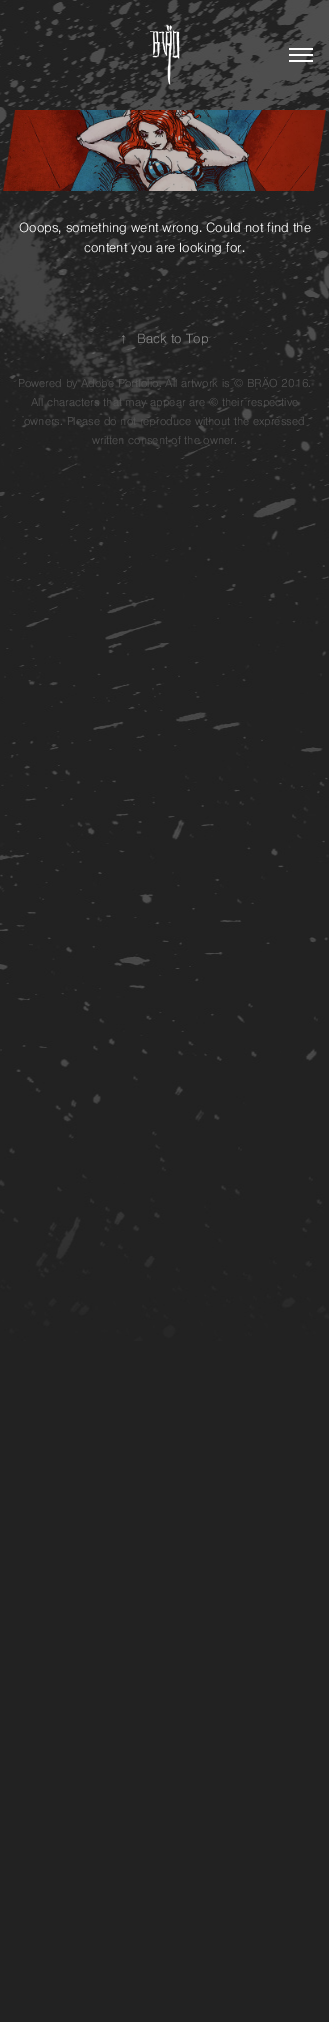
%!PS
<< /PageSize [329 2022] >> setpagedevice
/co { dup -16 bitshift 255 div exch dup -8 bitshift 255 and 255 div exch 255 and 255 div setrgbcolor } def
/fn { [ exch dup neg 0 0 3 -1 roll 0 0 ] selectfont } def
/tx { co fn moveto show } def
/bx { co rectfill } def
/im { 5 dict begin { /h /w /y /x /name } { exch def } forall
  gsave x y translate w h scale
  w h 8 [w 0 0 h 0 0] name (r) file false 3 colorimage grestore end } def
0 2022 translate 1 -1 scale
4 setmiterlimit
0 0 329 2022 16#222222 bx
(media/1.raw) 0 0 329 1341 im
(media/2.raw) 150 25 30 60 im
289 48 24 2 16#FFFFFF bx
289 54 24 2 16#FFFFFF bx
289 60 24 2 16#FFFFFF bx
(media/3.raw) 3 110 323 81 im
(Ooops, something went wrong. Could not find the) 19 232 /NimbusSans-Light 14 16#FFFFFF tx
(content you are looking for.) 84 252 /NimbusSans-Light 14 16#FFFFFF tx
(↑) 120 343 /LiberationSerif-Regular 14 16#888888 tx
(Back to Top) 137 343 /NimbusSans-Light 14 16#888888 tx
(Powered by Adobe Portfolio. All artwork is © BRÄO 2016.) 18 387 /NimbusSans-Light 12 16#555555 tx
(All characters that may appear are © their respective) 31 406 /NimbusSans-Light 12 16#555555 tx
(owners. Please do not reproduce without the expressed) 24 425 /NimbusSans-Light 12 16#555555 tx
(written consent of the owner.) 92 444 /NimbusSans-Light 12 16#555555 tx
showpage
